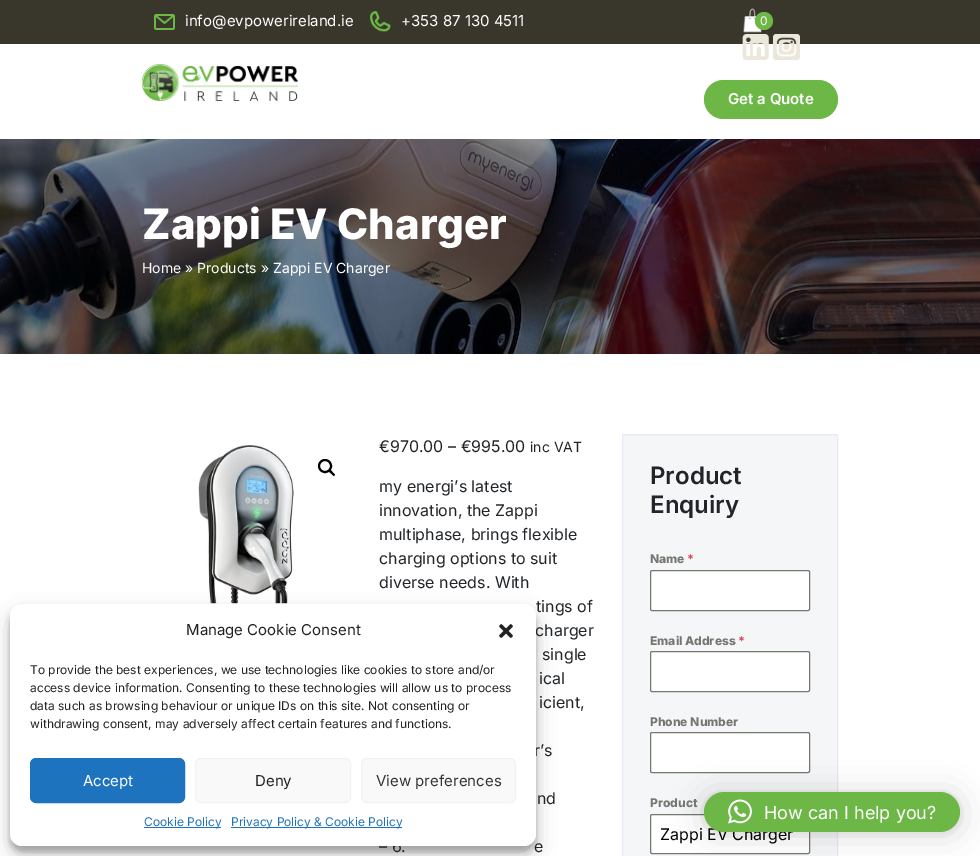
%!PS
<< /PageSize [980 856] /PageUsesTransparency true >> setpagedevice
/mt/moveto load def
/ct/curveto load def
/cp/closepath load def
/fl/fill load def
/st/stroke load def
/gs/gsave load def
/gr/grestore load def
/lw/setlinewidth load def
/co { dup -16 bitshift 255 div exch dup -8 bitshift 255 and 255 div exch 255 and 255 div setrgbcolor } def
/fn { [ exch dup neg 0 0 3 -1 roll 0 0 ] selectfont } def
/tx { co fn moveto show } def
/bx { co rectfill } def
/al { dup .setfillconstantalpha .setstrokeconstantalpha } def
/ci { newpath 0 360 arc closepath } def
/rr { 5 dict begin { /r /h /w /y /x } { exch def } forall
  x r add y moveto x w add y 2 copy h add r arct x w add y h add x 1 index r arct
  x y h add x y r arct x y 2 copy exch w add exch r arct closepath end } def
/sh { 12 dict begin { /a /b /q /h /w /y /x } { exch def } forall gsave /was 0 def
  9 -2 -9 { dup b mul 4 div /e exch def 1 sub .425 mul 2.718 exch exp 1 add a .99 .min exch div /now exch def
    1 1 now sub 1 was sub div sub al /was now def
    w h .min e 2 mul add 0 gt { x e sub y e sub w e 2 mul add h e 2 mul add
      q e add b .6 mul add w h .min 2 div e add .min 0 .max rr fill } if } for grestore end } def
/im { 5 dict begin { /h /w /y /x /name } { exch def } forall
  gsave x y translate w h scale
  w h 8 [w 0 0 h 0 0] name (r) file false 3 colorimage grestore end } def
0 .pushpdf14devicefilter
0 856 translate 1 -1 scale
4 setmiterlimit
0 0 980 856 16#FFFFFF bx
0 0 980 44 16#39362B bx
(media/1.raw) 154 14 21 16 im
(media/2.raw) 370 11 21 21 im
(media/3.raw) 743 8 19 25 im
16#6CB745 co
764 21 9 ci fl
(media/4.raw) 742 34 27 26 im
(media/5.raw) 773 34 27 26 im
(media/6.raw) 142 64 156 37 im
704 80 134 39 19.5 rr fl
(media/7.raw) 0 139 980 215 im
(media/9.raw) 198 445 96 159 im
0.8 al
210 603 78 1 16#FFFFFF bx
1 al
16#000000 co
10 610 526 242 12 3 .23 sh
10 614 526 242 12 10 .19 sh
2 lw
325 466 6 ci st
329 470 mt 330 469 332 471.5 332.5 472 ct 333 473 336 474.5 334.5 475.5 ct 333.5 477 332 474 331 473.5 ct 330.5 473 328 471.5 329 470 ct cp fl
16#F5F6F7 co
622.5 434.5 215 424 1.5 rr gs fl gr
16#E8E8F9 co
1 lw
st
16#FFFFFF co
650.5 570.5 159 40 1.5 rr gs fl gr
16#777771 co
st
16#FFFFFF co
650.5 651.5 159 40 1.5 rr gs fl gr
16#777771 co
st
16#FFFFFF co
650.5 732.5 159 40 1.5 rr gs fl gr
16#777771 co
st
16#FFFFFF co
650.5 814.5 159 39 1.5 rr gs fl gr
16#777771 co
st
16#000000 co
704 794 256 40 20 16 .16 sh
704 793 256 40 20 3 .06 sh
(info@evpowerireland.ie) 185 26 /Inter-Regular 15 16#FFFFFF tx
(+353 87 130 4511) 401 26 /Inter-Regular 15 16#FFFFFF tx
(0) 760 25 /Inter-Regular 12 16#FFFFFF tx
(Get a Quote) 728 104 /Inter-SemiBold 15 16#FFFFFF tx
(Zappi EV Charger) 142 239 /Inter-ExtraBold 42 16#FFFFFF tx
(Home) 142 273 /Inter-Regular 14 16#FFFFFF tx
(» Products) 185 273 /Inter-Regular 14 16#FFFFFF tx
(» Zappi EV Charger) 261 273 /Inter-Regular 14 16#FFFFFF tx
(€970.00 – €995.00) 379 452 /Inter-Regular 16 16#212529 tx
(inc VAT) 530 452 /Inter-Regular 14 16#212529 tx
(my energi’s latest) 379 492 /Inter-Regular 16 16#212529 tx
(innovation, the Zappi) 379 516 /Inter-Regular 16 16#212529 tx
(multiphase, brings flexible) 379 540 /Inter-Regular 16 16#212529 tx
(charging options to suit) 379 564 /Inter-Regular 16 16#212529 tx
(diverse needs. With) 379 588 /Inter-Regular 16 16#212529 tx
(tings of) 536 612 /Inter-Regular 16 16#212529 tx
(charger) 535 636 /Inter-Regular 16 16#212529 tx
(single) 542 660 /Inter-Regular 16 16#212529 tx
(ical) 539 684 /Inter-Regular 16 16#212529 tx
(icient,) 539 708 /Inter-Regular 16 16#212529 tx
(r’s) 534 756 /Inter-Regular 16 16#212529 tx
(nd) 537 804 /Inter-Regular 16 16#212529 tx
(– 6.) 379 852 /Inter-Regular 16 16#212529 tx
(e) 534 852 /Inter-Regular 16 16#212529 tx
16#FFFFFF co
10 604 526 242 12 rr fl
(withdrawing consent, may adversely affect certain features and functions.) 30 728 /Inter-Regular 12 16#222222 tx
(data such as browsing behaviour or unique IDs on this site. Not consenting or) 30 710 /Inter-Regular 12 16#222222 tx
(access device information. Consenting to these technologies will allow us to process) 30 692 /Inter-Regular 12 16#222222 tx
(To provide the best experiences, we use technologies like cookies to store and/or) 30 674 /Inter-Regular 12 16#222222 tx
(media/8.raw) 499 624 14 14 im
231 827 171 1 16#1E73BE bx
(Privacy Policy & Cookie Policy) 231 826 /Inter-Regular 12 16#1E73BE tx
144 827 77 1 16#1E73BE bx
(Cookie Policy) 144 826 /Inter-Regular 12 16#1E73BE tx
16#F9F9F9 co
361.5 758.5 154 44 5.5 rr gs fl gr
16#F2F2F2 co
st
(View preferences) 376 786 /Inter-Regular 15 16#333333 tx
16#F9F9F9 co
195.5 758.5 155 44 5.5 rr gs fl gr
16#F2F2F2 co
st
(Deny) 255 786 /Inter-Regular 15 16#222222 tx
16#1E73BE co
30.5 758.5 154 44 5.5 rr gs fl gr
st
(Accept) 83 786 /Inter-Regular 15 16#FFFFFF tx
(Manage Cookie Consent) 186 635 /Inter-Regular 15 16#222222 tx
(Product) 650 484 /Inter-SemiBold 24 16#212529 tx
(Enquiry) 650 513 /Inter-SemiBold 24 16#212529 tx
(Name) 650 563 /Inter-ExtraBold 12 16#777771 tx
(*) 687 563 /Inter-ExtraBold 12 16#E04562 tx
(Email Address) 650 645 /Inter-ExtraBold 12 16#777771 tx
(*) 738 645 /Inter-ExtraBold 12 16#E04562 tx
(Phone Number) 650 726 /Inter-ExtraBold 12 16#777771 tx
(Product) 650 807 /Inter-ExtraBold 12 16#777771 tx
(Zappi EV Charger) 660 840 /Inter-Regular 16 16#000000 tx
16#6CB745 co
704 792 256 40 20 rr fl
(media/10.raw) 728 799 24 25 im
(How can I help you?) 764 819 /Inter-Regular 18 16#FFFFFF tx
.poppdf14devicefilter showpage
